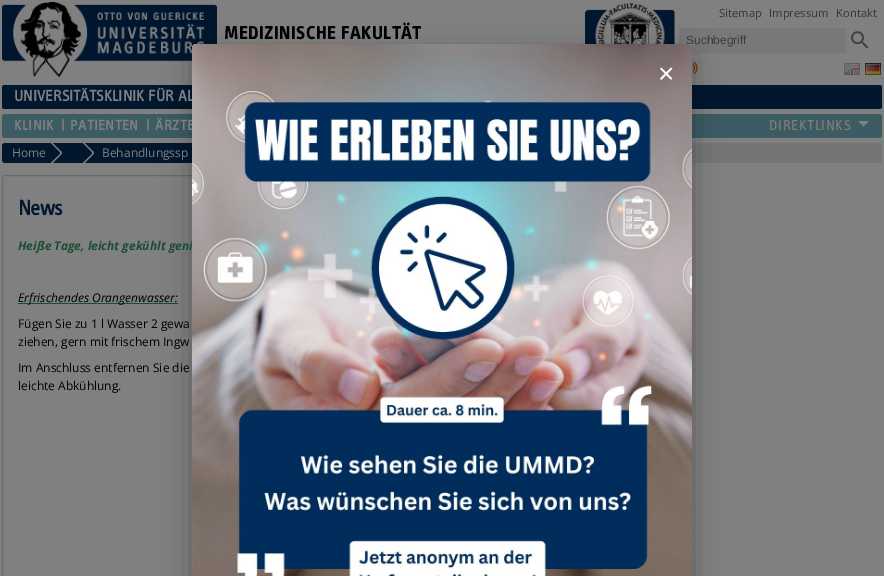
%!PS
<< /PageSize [884 576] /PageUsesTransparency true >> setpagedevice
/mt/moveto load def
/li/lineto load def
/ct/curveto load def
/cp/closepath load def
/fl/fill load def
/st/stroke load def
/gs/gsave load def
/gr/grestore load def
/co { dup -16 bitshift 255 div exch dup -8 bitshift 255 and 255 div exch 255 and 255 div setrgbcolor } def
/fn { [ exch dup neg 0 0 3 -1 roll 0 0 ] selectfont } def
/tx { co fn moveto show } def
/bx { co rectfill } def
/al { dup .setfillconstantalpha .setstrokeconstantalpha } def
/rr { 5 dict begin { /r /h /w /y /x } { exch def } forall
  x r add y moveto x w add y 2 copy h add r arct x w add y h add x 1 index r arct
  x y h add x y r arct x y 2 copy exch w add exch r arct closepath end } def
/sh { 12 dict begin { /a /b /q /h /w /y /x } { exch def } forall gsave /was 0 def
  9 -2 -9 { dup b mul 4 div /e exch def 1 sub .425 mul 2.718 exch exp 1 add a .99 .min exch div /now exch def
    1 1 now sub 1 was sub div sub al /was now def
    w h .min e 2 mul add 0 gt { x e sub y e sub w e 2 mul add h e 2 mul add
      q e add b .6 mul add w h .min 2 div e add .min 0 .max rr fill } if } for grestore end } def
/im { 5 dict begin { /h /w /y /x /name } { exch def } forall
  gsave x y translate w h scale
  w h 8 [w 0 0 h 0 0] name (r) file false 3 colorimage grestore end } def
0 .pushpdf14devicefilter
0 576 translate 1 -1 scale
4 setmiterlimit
0 0 884 576 16#808080 bx
(media/1.raw) 2 2 215 75 im
(media/2.raw) 585 3 90 41 im
16#787878 co
679.5 28.5 mt 845.5 28.5 li 845.5 52.5 li 679.5 52.5 li cp gs fl gr
16#797979 co
st
(media/3.raw) 851 31 18 18 im
(media/4.raw) 692 61 6 14 im
(media/5.raw) 844 63 16 12 im
(media/6.raw) 865 63 16 12 im
16#00172E co
2 85 880 24 2.5 rr fl
16#3C5B63 co
2 114 880 24 3 rr fl
16#747575 co
2 143 880 20 3 rr fl
51 143 141 20 16#00172E bx
16#686A6B co
2.5 175.5 655 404 2.5 rr st
18 303 160 1 16#1A4D33 bx
16#000000 co
192 54 500 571 4 15 .3 sh
16#808080 co
858 121 mt 863.5 126.5 li 869 121 li cp fl
0.9 al
83.5 142 mt 82.5 143 li 91.5 152 li 92 152.5 92 153.5 91.5 154 ct 82.5 163 li 82.5 162.5 li 83.5 164 li 93 154.5 li 94 153.5 94 152 93 151.5 ct cp fl
83.5 142 mt 82.5 143 li 91.5 152 li 92 152.5 92 153.5 91.5 154 ct 82.5 163 li 82.5 162.5 li 83.5 164 li 93 154.5 li 94 153.5 94 152 93 151.5 ct cp fl
1 al
16#00172E co
82.5 143 mt 91.5 152 li 92 152.5 92 153.5 91.5 154 ct 82.5 163 li 77 157.5 77 148.5 82.5 143 ct cp fl
5 143 mt 51 143 li 51 163 li 5 163 li 3.5 163 2 161.5 2 160 ct 2 146 li 2 144.5 3.5 143 5 143 ct cp fl
0.9 al
16#808080 co
51.5 142 mt 50.5 143 li 59.5 152 li 60 152.5 60 153.5 59.5 154 ct 50.5 163 li 50.5 162.5 li 51.5 164 li 61 154.5 li 62 153.5 62 152 61 151.5 ct cp fl
51.5 142 mt 50.5 143 li 59.5 152 li 60 152.5 60 153.5 59.5 154 ct 50.5 163 li 50.5 162.5 li 51.5 164 li 61 154.5 li 62 153.5 62 152 61 151.5 ct cp fl
1 al
16#00172E co
50.5 143 mt 59.5 152 li 60 152.5 60 153.5 59.5 154 ct 50.5 163 li 45 157.5 45 148.5 50.5 143 ct cp fl
/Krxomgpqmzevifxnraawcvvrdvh-Bold 19.25 fn
16#000000 co
224 39 mt .3 0 (MEDIZINISCHE FAKULTÄT) ashow
(Sitemap) 719 17 /OpenSans-Regular 11.25 16#343536 tx
(Impressum) 769 17 /OpenSans-Regular 11.25 16#343536 tx
(Kontakt) 836 17 /OpenSans-Regular 11.25 16#343536 tx
(Suchbegriff) 686 44 /LiberationSans-Regular 12 16#3B3B3B tx
(UNIVERSITÄTSKLINIK FÜR AL) 14 101 /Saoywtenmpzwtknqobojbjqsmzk-Bold 16 16#808080 tx
/Saoywtenmpzwtknqobojbjqsmzk-Bold 14.75 fn
14 130 mt .5 0 (KLINIK) ashow
61 130 mt .5 0 (|) ashow
70 130 mt .5 0 (PATIENTEN) ashow
146 130 mt .5 0 (|) ashow
155 130 mt .5 0 (ÄRZTE) ashow
/Saoywtenmpzwtknqobojbjqsmzk-Regular 14.75 fn
769 130 mt .75 0 (DIREKTLINKS) ashow
(Home) 12 157 /OpenSans-Regular 12 16#808080 tx
(Behandlungssp) 102 157 /OpenSans-Regular 12 16#808080 tx
/Saoywtenmpzwtknqobojbjqsmzk-Bold 22 fn
16#00172E co
18 215 mt -1 0 (News) ashow
(Heiße Tage, leicht gekühlt geni) 18 250 /OpenSans-BoldItalic 12 16#1A4D33 tx
(media/7.raw) 192 44 500 532 im
(×) 658 83 /LiberationSans-Regular 28 16#FFFFFF tx
(Erfrischendes Orangenwasser:) 18 302 /OpenSans-Italic 12 16#000000 tx
(Fügen Sie zu 1 l Wasser 2 gewa) 18 328 /OpenSans-Regular 12 16#000000 tx
(ziehen, gern mit frischem Ingw) 18 346 /OpenSans-Regular 12 16#000000 tx
(Im Anschluss entfernen Sie die) 18 372 /OpenSans-Regular 12 16#000000 tx
(leichte Abkühlung.) 18 390 /OpenSans-Regular 12 16#000000 tx
.poppdf14devicefilter showpage
